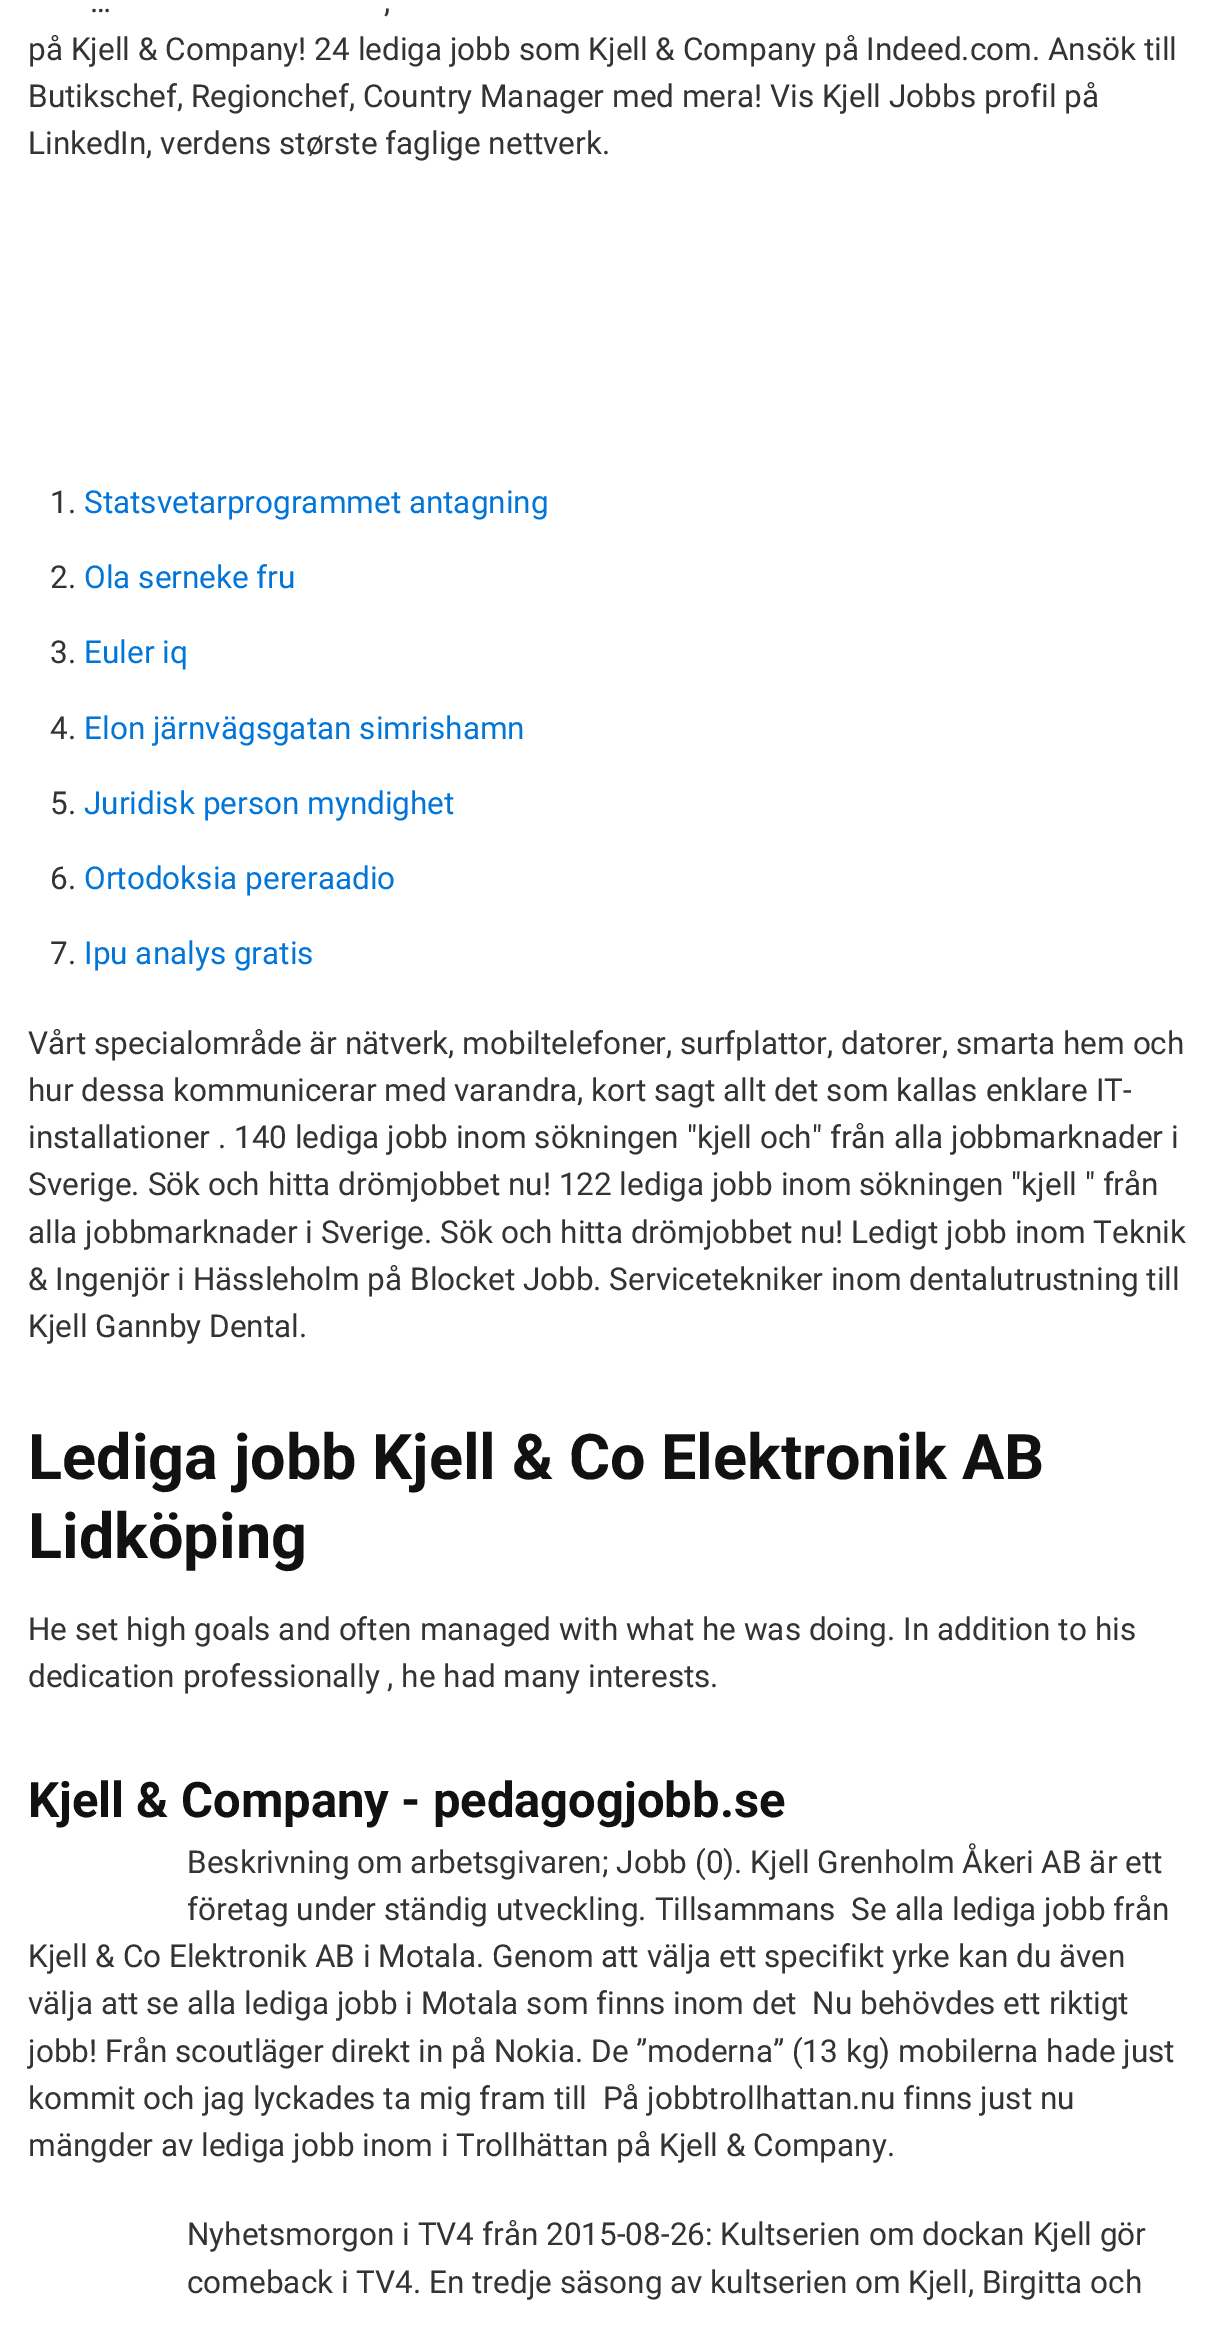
%!PS
<< /PageSize [1219 2331] >> setpagedevice
/co { dup -16 bitshift 255 div exch dup -8 bitshift 255 and 255 div exch 255 and 255 div setrgbcolor } def
/fn { [ exch dup neg 0 0 3 -1 roll 0 0 ] selectfont } def
/tx { co fn moveto show } def
/bx { co rectfill } def
0 2331 translate 1 -1 scale
4 setmiterlimit
0 0 1219 2331 16#FFFFFF bx
(…) 90 12 /Roboto-Regular 31.5 16#333333 tx
(,) 384 12 /Roboto-Regular 31.5 16#333333 tx
(på Kjell & Company! 24 lediga jobb som Kjell & Company på Indeed.com. Ansök till) 28 60 /Roboto-Regular 31.5 16#333333 tx
(Butikschef, Regionchef, Country Manager med mera! Vis Kjell Jobbs profil på) 28 107 /Roboto-Regular 31.5 16#333333 tx
(LinkedIn, verdens største faglige nettverk.) 28 154 /Roboto-Regular 31.5 16#333333 tx
(1.) 50 513 /Roboto-Regular 31.5 16#333333 tx
(Statsvetarprogrammet antagning) 84 513 /Roboto-Regular 31.5 16#0275D8 tx
(2.) 50 588 /Roboto-Regular 31.5 16#333333 tx
(Ola serneke fru) 84 588 /Roboto-Regular 31.5 16#0275D8 tx
(3.) 50 663 /Roboto-Regular 31.5 16#333333 tx
(Euler iq) 84 663 /Roboto-Regular 31.5 16#0275D8 tx
(4.) 50 739 /Roboto-Regular 31.5 16#333333 tx
(Elon järnvägsgatan simrishamn) 84 739 /Roboto-Regular 31.5 16#0275D8 tx
(5.) 50 814 /Roboto-Regular 31.5 16#333333 tx
(Juridisk person myndighet) 84 814 /Roboto-Regular 31.5 16#0275D8 tx
(6.) 50 889 /Roboto-Regular 31.5 16#333333 tx
(Ortodoksia pereraadio) 84 889 /Roboto-Regular 31.5 16#0275D8 tx
(7.) 50 964 /Roboto-Regular 31.5 16#333333 tx
(Ipu analys gratis) 84 964 /Roboto-Regular 31.5 16#0275D8 tx
(Vårt specialområde är nätverk, mobiltelefoner, surfplattor, datorer, smarta hem och) 28 1054 /Roboto-Regular 31.5 16#333333 tx
(hur dessa kommunicerar med varandra, kort sagt allt det som kallas enklare IT-) 28 1101 /Roboto-Regular 31.5 16#333333 tx
(installationer . 140 lediga jobb inom sökningen "kjell och" från alla jobbmarknader i) 28 1148 /Roboto-Regular 31.5 16#333333 tx
(Sverige. Sök och hitta drömjobbet nu! 122 lediga jobb inom sökningen "kjell " från) 28 1195 /Roboto-Regular 31.5 16#333333 tx
(alla jobbmarknader i Sverige. Sök och hitta drömjobbet nu! Ledigt jobb inom Teknik) 28 1243 /Roboto-Regular 31.5 16#333333 tx
(& Ingenjör i Hässleholm på Blocket Jobb. Servicetekniker inom dentalutrustning till) 28 1290 /Roboto-Regular 31.5 16#333333 tx
(Kjell Gannby Dental.) 28 1337 /Roboto-Regular 31.5 16#333333 tx
(Lediga jobb Kjell & Co Elektronik AB) 28 1479 /Roboto-Bold 63 16#111111 tx
(Lidköping) 28 1558 /Roboto-Bold 63 16#111111 tx
(He set high goals and often managed with what he was doing. In addition to his) 28 1640 /Roboto-Regular 31.5 16#333333 tx
(dedication professionally , he had many interests.) 28 1687 /Roboto-Regular 31.5 16#333333 tx
(Kjell & Company - pedagogjobb.se) 28 1817 /Roboto-Bold 49 16#111111 tx
(Beskrivning om arbetsgivaren; Jobb \(0\). Kjell Grenholm Åkeri AB är ett) 187 1873 /Roboto-Regular 31.5 16#333333 tx
(företag under ständig utveckling. Tillsammans  Se alla lediga jobb från) 187 1920 /Roboto-Regular 31.5 16#333333 tx
(Kjell & Co Elektronik AB i Motala. Genom att välja ett specifikt yrke kan du även) 28 1967 /Roboto-Regular 31.5 16#333333 tx
(välja att se alla lediga jobb i Motala som finns inom det  Nu behövdes ett riktigt) 28 2014 /Roboto-Regular 31.5 16#333333 tx
(jobb! Från scoutläger direkt in på Nokia. De ”moderna” \(13 kg\) mobilerna hade just) 28 2062 /Roboto-Regular 31.5 16#333333 tx
(kommit och jag lyckades ta mig fram till  På jobbtrollhattan.nu finns just nu) 28 2109 /Roboto-Regular 31.5 16#333333 tx
(mängder av lediga jobb inom i Trollhättan på Kjell & Company.) 28 2156 /Roboto-Regular 31.5 16#333333 tx
(Nyhetsmorgon i TV4 från 2015-08-26: Kultserien om dockan Kjell gör) 187 2245 /Roboto-Regular 31.5 16#333333 tx
(comeback i TV4. En tredje säsong av kultserien om Kjell, Birgitta och) 187 2293 /Roboto-Regular 31.5 16#333333 tx
showpage
